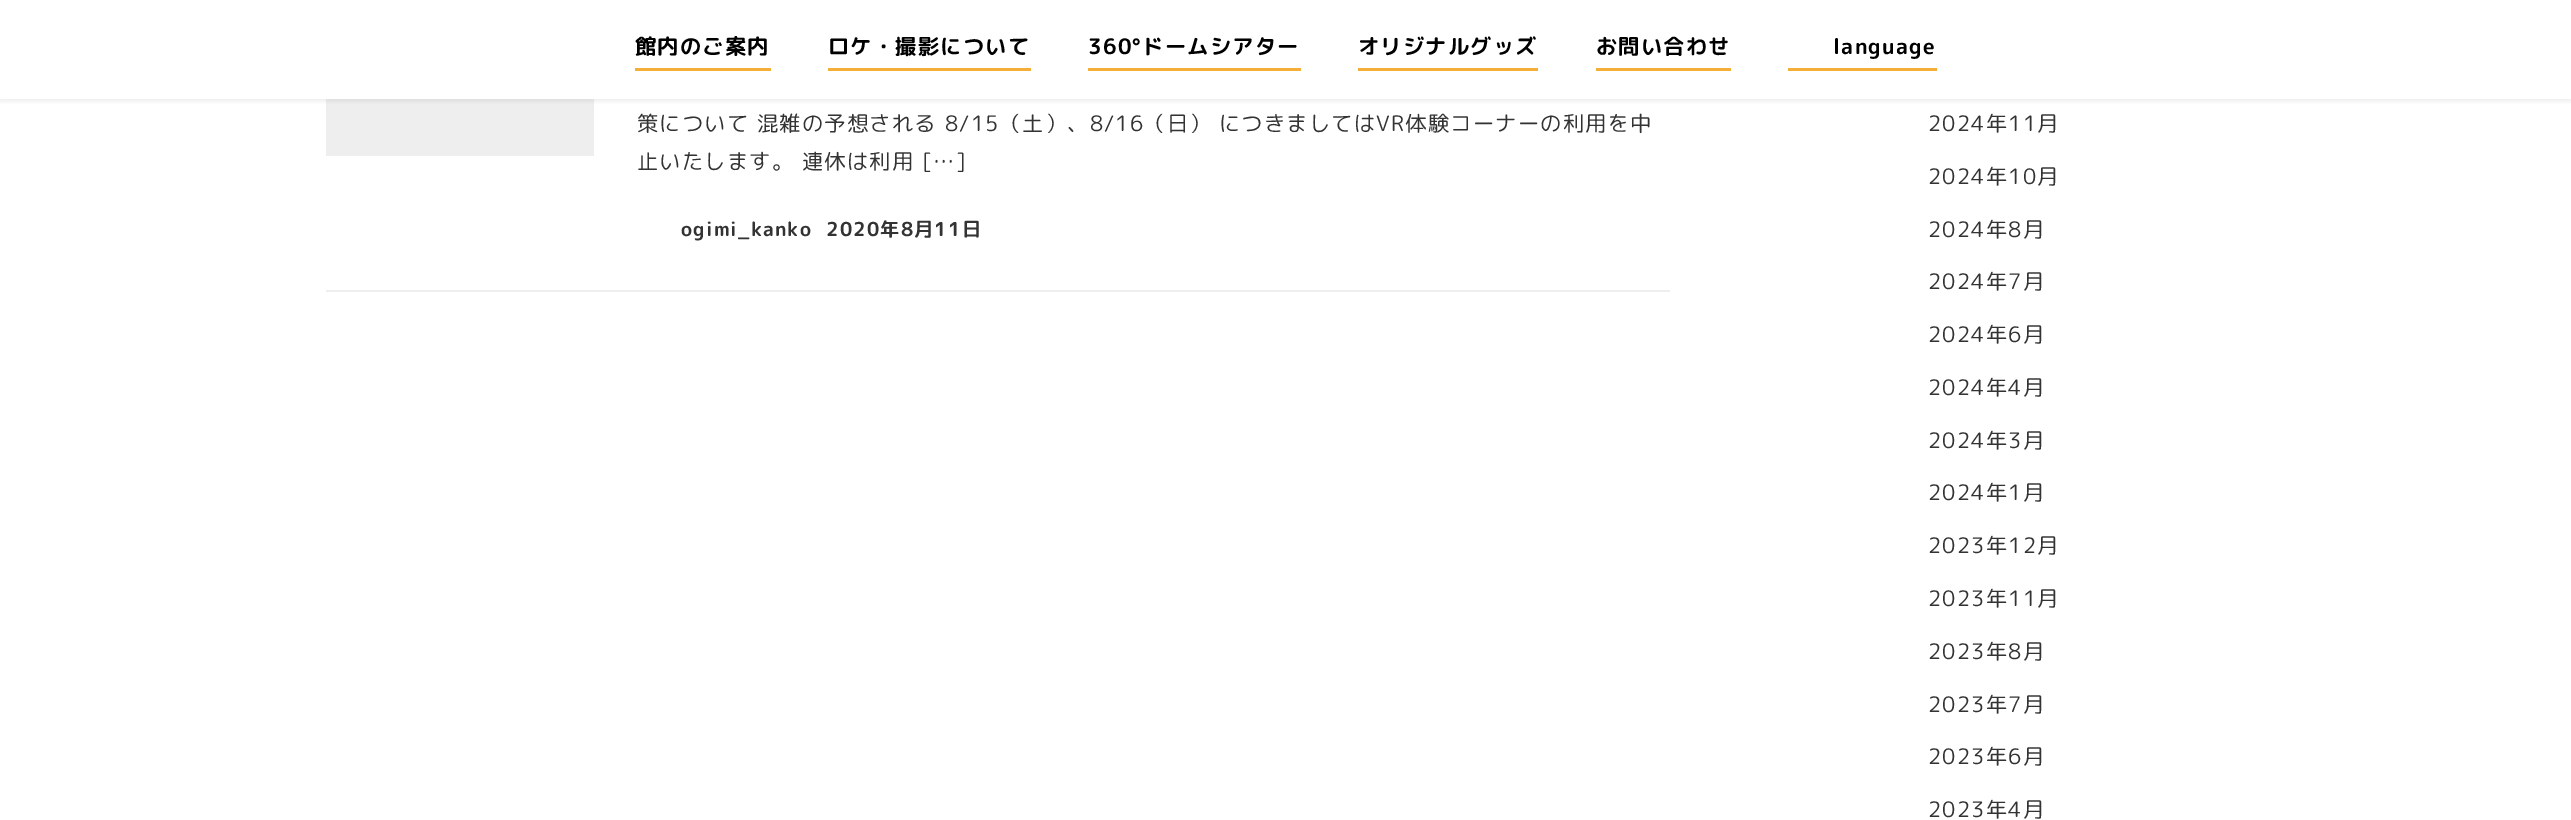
%!PS
<< /PageSize [2571 820] /PageUsesTransparency true >> setpagedevice
/mt/moveto load def
/co { dup -16 bitshift 255 div exch dup -8 bitshift 255 and 255 div exch 255 and 255 div setrgbcolor } def
/fn { [ exch dup neg 0 0 3 -1 roll 0 0 ] selectfont } def
/bx { co rectfill } def
/al { dup .setfillconstantalpha .setstrokeconstantalpha } def
/rr { 5 dict begin { /r /h /w /y /x } { exch def } forall
  x r add y moveto x w add y 2 copy h add r arct x w add y h add x 1 index r arct
  x y h add x y r arct x y 2 copy exch w add exch r arct closepath end } def
/sh { 12 dict begin { /a /b /q /h /w /y /x } { exch def } forall gsave /was 0 def
  9 -2 -9 { dup b mul 4 div /e exch def 1 sub .425 mul 2.718 exch exp 1 add a .99 .min exch div /now exch def
    1 1 now sub 1 was sub div sub al /was now def
    w h .min e 2 mul add 0 gt { x e sub y e sub w e 2 mul add h e 2 mul add
      q e add b .6 mul add w h .min 2 div e add .min 0 .max rr fill } if } for grestore end } def
0 .pushpdf14devicefilter
0 820 translate 1 -1 scale
4 setmiterlimit
0 0 2571 820 16#FFFFFF bx
326 99 268 57 16#EEEEEE bx
16#000000 co
-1 0 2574 102 0 1.5 .05 sh
0 0 2571 99 16#FFFFFF bx
635 68 136 3 16#F4AF38 bx
828 68 203 3 16#F4AF38 bx
1088 68 213 3 16#F4AF38 bx
1358 68 180 3 16#F4AF38 bx
1596 68 135 3 16#F4AF38 bx
1788 68 149 3 16#F4AF38 bx
326 290 1344 2 16#EEEEEE bx
/RoundedMplus1cBold-Bold 21.3 fn
16#000000 co
635 54 mt 1.2 0 (館内のご案内) ashow
828 54 mt 1.2 0 (ロケ・撮影について) ashow
1088 54 mt 1.2 0 (360°ドームシアター) ashow
1358 54 mt 1.2 0 (オリジナルグッズ) ashow
1596 54 mt 1.2 0 (お問い合わせ) ashow
1833 54 mt 1.2 0 (language) ashow
/RoundedMplus1c-Regular 21.3 fn
16#333333 co
637 131 mt 1.2 0 (策について) ashow
757 131 mt 1.2 0 (混雑の予想される) ashow
945 131 mt 1.2 0 (8/15（土）、8/16（日）) ashow
1219 131 mt 1.2 0 (につきましてはVR体験コーナーの利用を中) ashow
637 169 mt 1.2 0 (止いたします。) ashow
802 169 mt 1.2 0 (連休は利用) ashow
922 169 mt 1.2 0 ([…]) ashow
/RoundedMplus1cBold-Bold 19.25 fn
681 236 mt 1.2 0 (ogimi_kanko) ashow
826 236 mt 1.2 0 (2020年8月11日) ashow
/RoundedMplus1c-Regular 21.3 fn
1928 131 mt 1.2 0 (2024年11月) ashow
1928 184 mt 1.2 0 (2024年10月) ashow
1928 237 mt 1.2 0 (2024年8月) ashow
1928 289 mt 1.2 0 (2024年7月) ashow
1928 342 mt 1.2 0 (2024年6月) ashow
1928 395 mt 1.2 0 (2024年4月) ashow
1928 448 mt 1.2 0 (2024年3月) ashow
1928 500 mt 1.2 0 (2024年1月) ashow
1928 553 mt 1.2 0 (2023年12月) ashow
1928 606 mt 1.2 0 (2023年11月) ashow
1928 659 mt 1.2 0 (2023年8月) ashow
1928 712 mt 1.2 0 (2023年7月) ashow
1928 764 mt 1.2 0 (2023年6月) ashow
1928 817 mt 1.2 0 (2023年4月) ashow
.poppdf14devicefilter showpage
